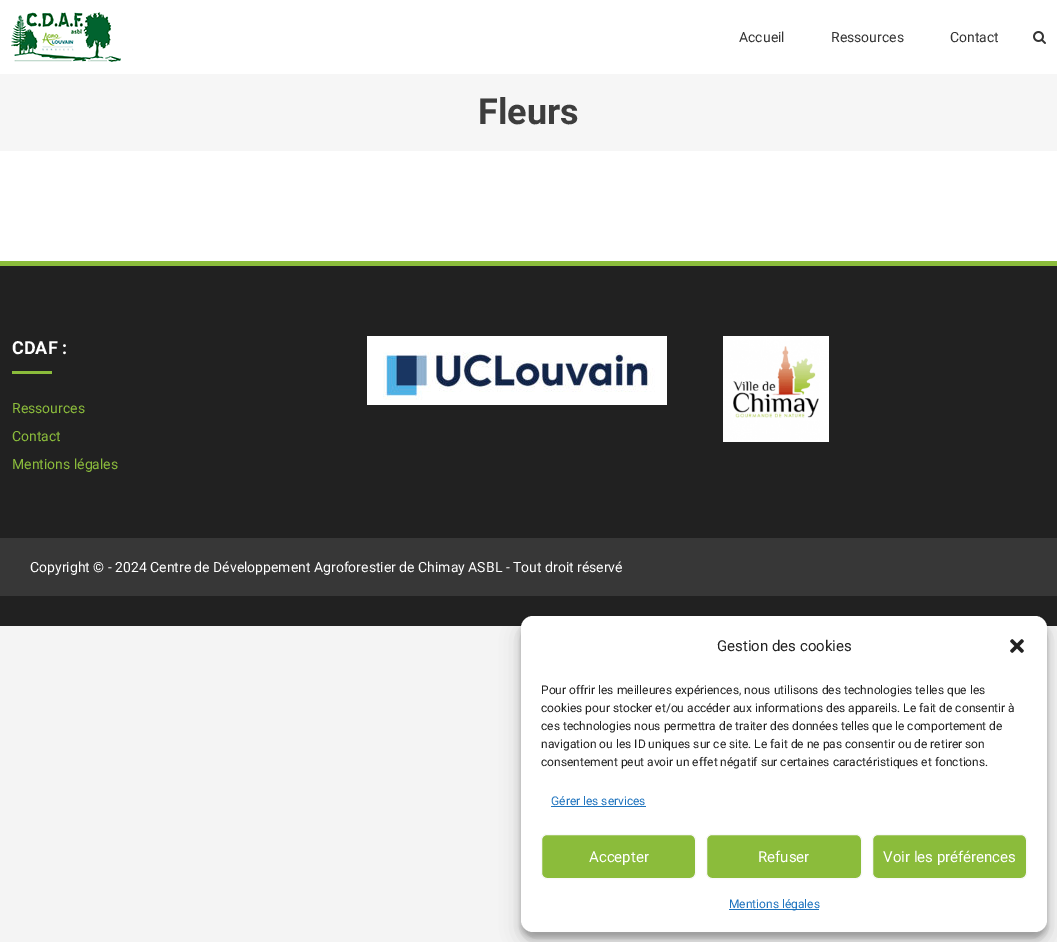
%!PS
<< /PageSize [1057 942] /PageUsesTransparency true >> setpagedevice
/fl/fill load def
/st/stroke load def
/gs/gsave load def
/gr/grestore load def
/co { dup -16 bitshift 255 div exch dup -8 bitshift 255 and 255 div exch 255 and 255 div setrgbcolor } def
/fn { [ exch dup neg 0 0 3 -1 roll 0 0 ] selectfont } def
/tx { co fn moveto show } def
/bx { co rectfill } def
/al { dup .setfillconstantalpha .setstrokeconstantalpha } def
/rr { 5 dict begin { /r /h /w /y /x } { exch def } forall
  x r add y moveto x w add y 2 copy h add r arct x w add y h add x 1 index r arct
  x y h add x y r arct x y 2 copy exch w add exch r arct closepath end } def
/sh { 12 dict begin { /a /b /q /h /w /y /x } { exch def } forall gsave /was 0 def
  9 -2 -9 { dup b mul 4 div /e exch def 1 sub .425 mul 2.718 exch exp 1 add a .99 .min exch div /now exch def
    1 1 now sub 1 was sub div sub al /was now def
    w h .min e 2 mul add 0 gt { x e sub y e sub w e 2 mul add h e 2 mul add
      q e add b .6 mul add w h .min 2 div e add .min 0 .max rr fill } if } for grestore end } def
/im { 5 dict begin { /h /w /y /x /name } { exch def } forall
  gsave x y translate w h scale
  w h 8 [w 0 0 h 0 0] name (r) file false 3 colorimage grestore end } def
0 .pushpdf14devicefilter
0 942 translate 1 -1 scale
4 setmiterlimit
0 0 1057 942 16#F4F4F4 bx
0 0 1057 261 16#FFFFFF bx
(media/1.raw) 11 12 110 50 im
(media/2.raw) 1033 31 13 13 im
0 74 1057 77 16#F6F6F6 bx
0 266 1057 360 16#212121 bx
0 261 1057 5 16#8BBC3B bx
12 371 40 3 16#8BBC3B bx
(media/3.raw) 367 336 300 69 im
(media/4.raw) 723 336 106 106 im
0 538 1057 58 16#373737 bx
16#000000 co
521 622 526 316 12 3 .23 sh
521 626 526 316 12 10 .19 sh
16#FFFFFF co
521 616 526 316 12 rr fl
(media/5.raw) 1010 639 14 14 im
551 806 95 1 16#1E73BE bx
16#8BBC3B co
541.5 834.5 154 44 5.5 rr gs fl gr
16#F9F9F9 co
st
16#8BBC3B co
706.5 834.5 155 44 5.5 rr gs fl gr
16#F9F9F9 co
st
16#8BBC3B co
872.5 834.5 154 44 5.5 rr gs fl gr
16#F9F9F9 co
st
729 909 90 1 16#1E73BE bx
(Accueil) 739 42 /Roboto-Regular 14 16#333333 tx
(Ressources) 831 42 /Roboto-Regular 14 16#333333 tx
(Contact) 950 42 /Roboto-Regular 14 16#333333 tx
(Fleurs) 478 124 /Roboto-Bold 36 16#3D3D3D tx
(CDAF :) 12 354 /Roboto-Bold 18 16#FFFFFF tx
(Ressources) 12 413 /Roboto-Regular 14 16#8BBC3B tx
(Contact) 12 441 /Roboto-Regular 14 16#8BBC3B tx
(Mentions légales) 12 469 /Roboto-Regular 14 16#8BBC3B tx
(Copyright © - 2024 Centre de Développement Agroforestier de Chimay ASBL - Tout droit réservé) 30 572 /Roboto-Regular 14 16#FFFFFF tx
(Gestion des cookies) 717 651 /Roboto-Regular 15 16#222222 tx
(Pour offrir les meilleures expériences, nous utilisons des technologies telles que les) 541 694 /Roboto-Regular 12 16#222222 tx
(cookies pour stocker et/ou accéder aux informations des appareils. Le fait de consentir à) 541 712 /Roboto-Regular 12 16#222222 tx
(ces technologies nous permettra de traiter des données telles que le comportement de) 541 730 /Roboto-Regular 12 16#222222 tx
(navigation ou les ID uniques sur ce site. Le fait de ne pas consentir ou de retirer son) 541 748 /Roboto-Regular 12 16#222222 tx
(consentement peut avoir un effet négatif sur certaines caractéristiques et fonctions.) 541 766 /Roboto-Regular 12 16#222222 tx
(Gérer les services) 551 805 /Roboto-Regular 12 16#1E73BE tx
(Accepter) 589 862 /Roboto-Regular 15 16#FFFFFF tx
(Refuser) 758 862 /Roboto-Regular 15 16#FFFFFF tx
(Voir les préférences) 883 862 /Roboto-Regular 15 16#FFFFFF tx
(Mentions légales) 729 908 /Roboto-Regular 12 16#1E73BE tx
.poppdf14devicefilter showpage
